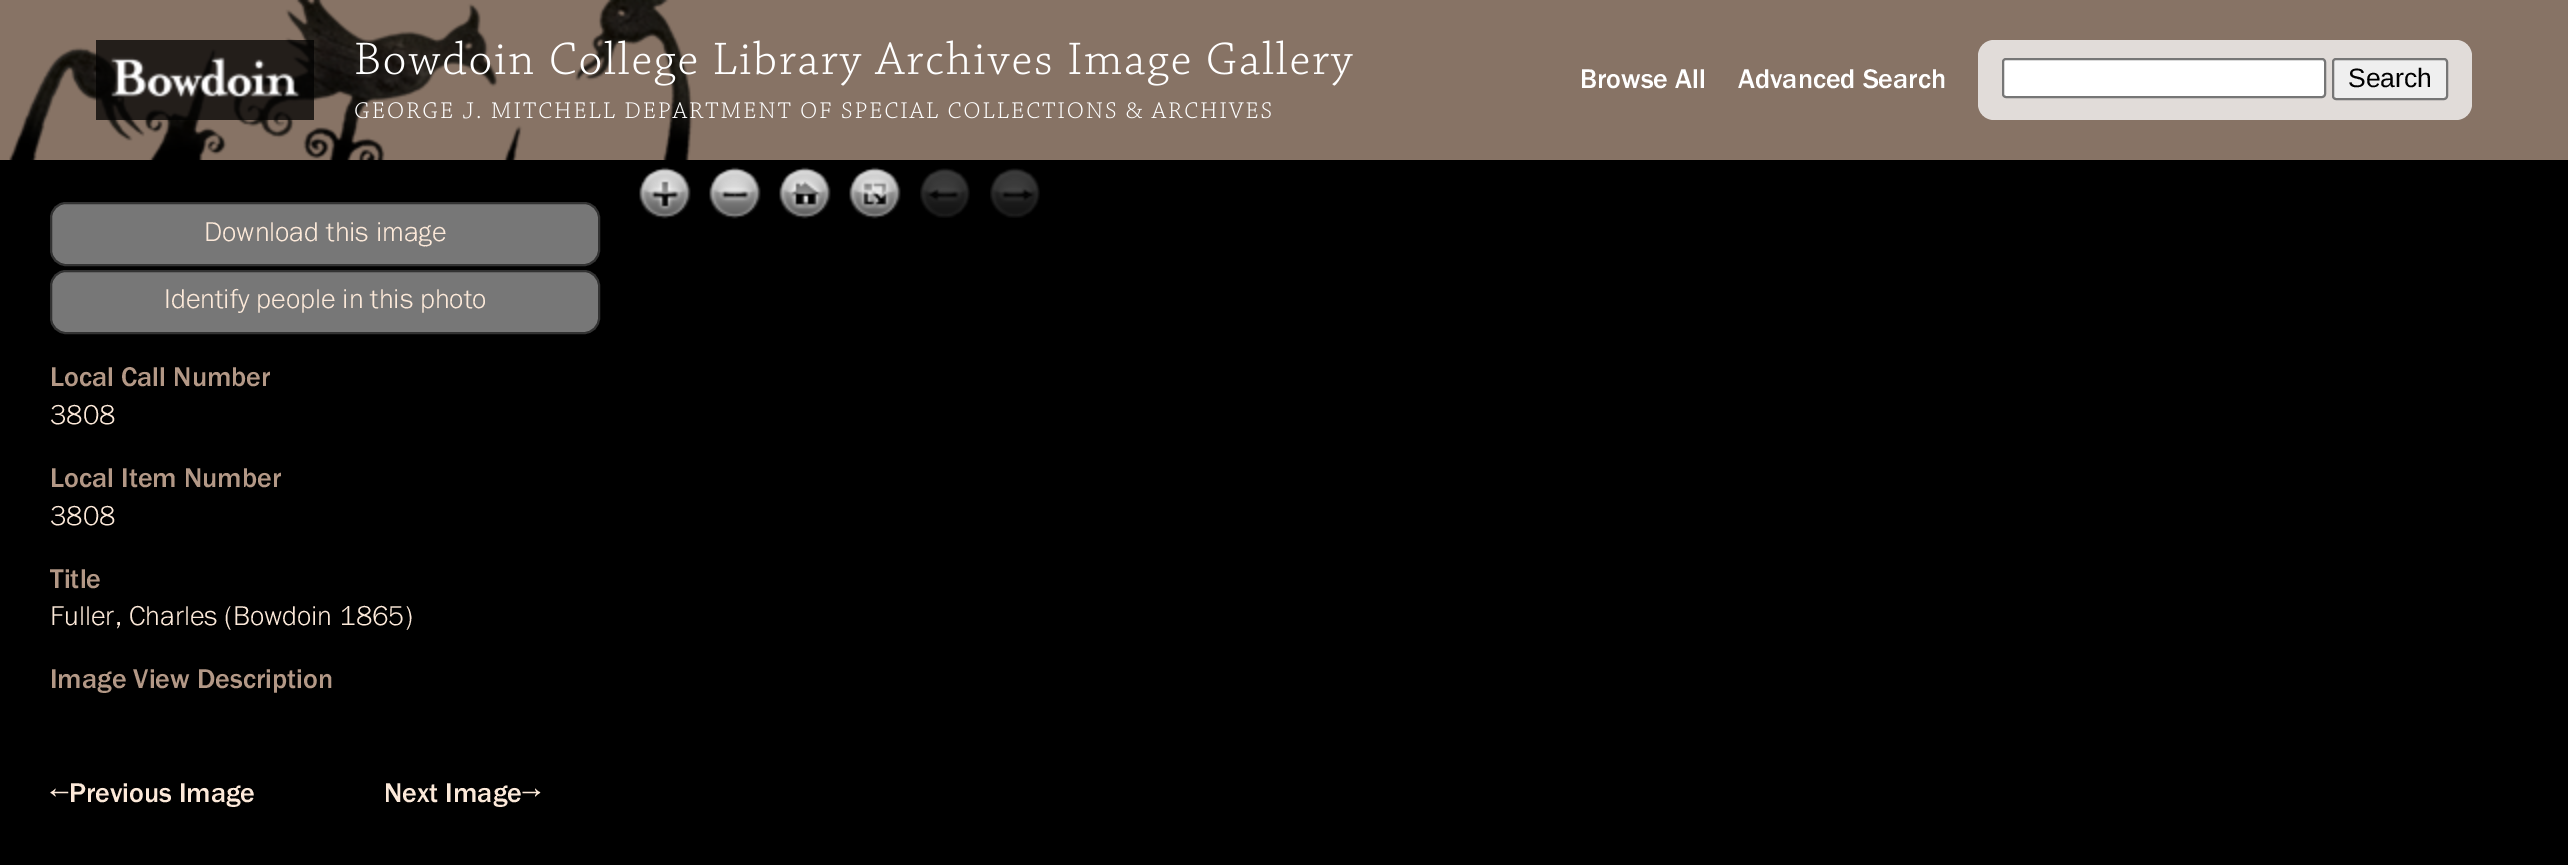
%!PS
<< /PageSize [2568 865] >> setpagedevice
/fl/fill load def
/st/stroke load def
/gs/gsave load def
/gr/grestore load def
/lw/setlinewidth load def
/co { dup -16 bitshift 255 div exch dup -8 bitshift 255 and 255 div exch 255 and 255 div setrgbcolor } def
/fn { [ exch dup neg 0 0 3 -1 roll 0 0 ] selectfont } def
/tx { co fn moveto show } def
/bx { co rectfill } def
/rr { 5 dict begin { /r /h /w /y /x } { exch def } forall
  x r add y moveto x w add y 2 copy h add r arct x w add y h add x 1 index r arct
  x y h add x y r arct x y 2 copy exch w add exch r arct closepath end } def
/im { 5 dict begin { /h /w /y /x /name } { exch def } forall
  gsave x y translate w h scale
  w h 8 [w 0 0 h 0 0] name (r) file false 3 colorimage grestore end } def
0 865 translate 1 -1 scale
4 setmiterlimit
0 0 2568 865 16#000000 bx
0 0 2568 160 16#877365 bx
(media/1.raw) 9 0 684 160 im
(media/2.raw) 96 40 218 80 im
(media/3.raw) 356 40 997 46 im
(media/4.raw) 355 102 916 17 im
16#E1DCD9 co
1978 40 494 80 16 rr fl
16#FFFFFF co
2003 59 322 38 3 rr gs fl gr
16#767676 co
2 lw
st
16#EFEFEF co
2333 59 114 40 3 rr gs fl gr
16#767676 co
st
(media/5.raw) 639 167 52 52 im
(media/6.raw) 639 167 52 52 im
(media/7.raw) 709 167 52 52 im
(media/8.raw) 709 167 52 52 im
(media/9.raw) 779 167 52 52 im
(media/10.raw) 779 167 52 52 im
(media/11.raw) 849 167 52 52 im
(media/12.raw) 849 167 52 52 im
(media/13.raw) 920 168 50 50 im
(media/14.raw) 920 168 50 50 im
(media/15.raw) 990 168 50 50 im
(media/16.raw) 990 168 50 50 im
16#777777 co
51 203 548 62 15 rr gs fl gr
16#333333 co
st
16#777777 co
51 271 548 62 15 rr gs fl gr
16#333333 co
st
(Browse All) 1580 88 /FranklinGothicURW-Regular 28 16#FFFFFF tx
(Advanced Search) 1738 88 /FranklinGothicURW-Regular 28 16#FFFFFF tx
(Search) 2348 87 /LiberationSans-Regular 26.5 16#000000 tx
(Download this image) 204 241 /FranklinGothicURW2-Regular 28.1 16#FCE9D9 tx
(Identify people in this photo) 164 308 /FranklinGothicURW2-Regular 28.1 16#FCE9D9 tx
(Local Call Number) 50 386 /FranklinGothicURW-Regular 28.1 16#B39886 tx
(3808) 50 424 /FranklinGothicURW2-Regular 28.1 16#FCE9D9 tx
(Local Item Number) 50 487 /FranklinGothicURW-Regular 28.1 16#B39886 tx
(3808) 50 525 /FranklinGothicURW2-Regular 28.1 16#FCE9D9 tx
(Title) 50 588 /FranklinGothicURW-Regular 28.1 16#B39886 tx
(Fuller, Charles \(Bowdoin 1865\)) 50 625 /FranklinGothicURW2-Regular 28.1 16#FCE9D9 tx
(Image View Description) 50 688 /FranklinGothicURW-Regular 28.1 16#B39886 tx
(←Previous Image) 50 802 /FranklinGothicURW-Regular 28.1 16#FCE9D9 tx
(Next Image→) 384 802 /FranklinGothicURW-Regular 28.1 16#FCE9D9 tx
showpage
